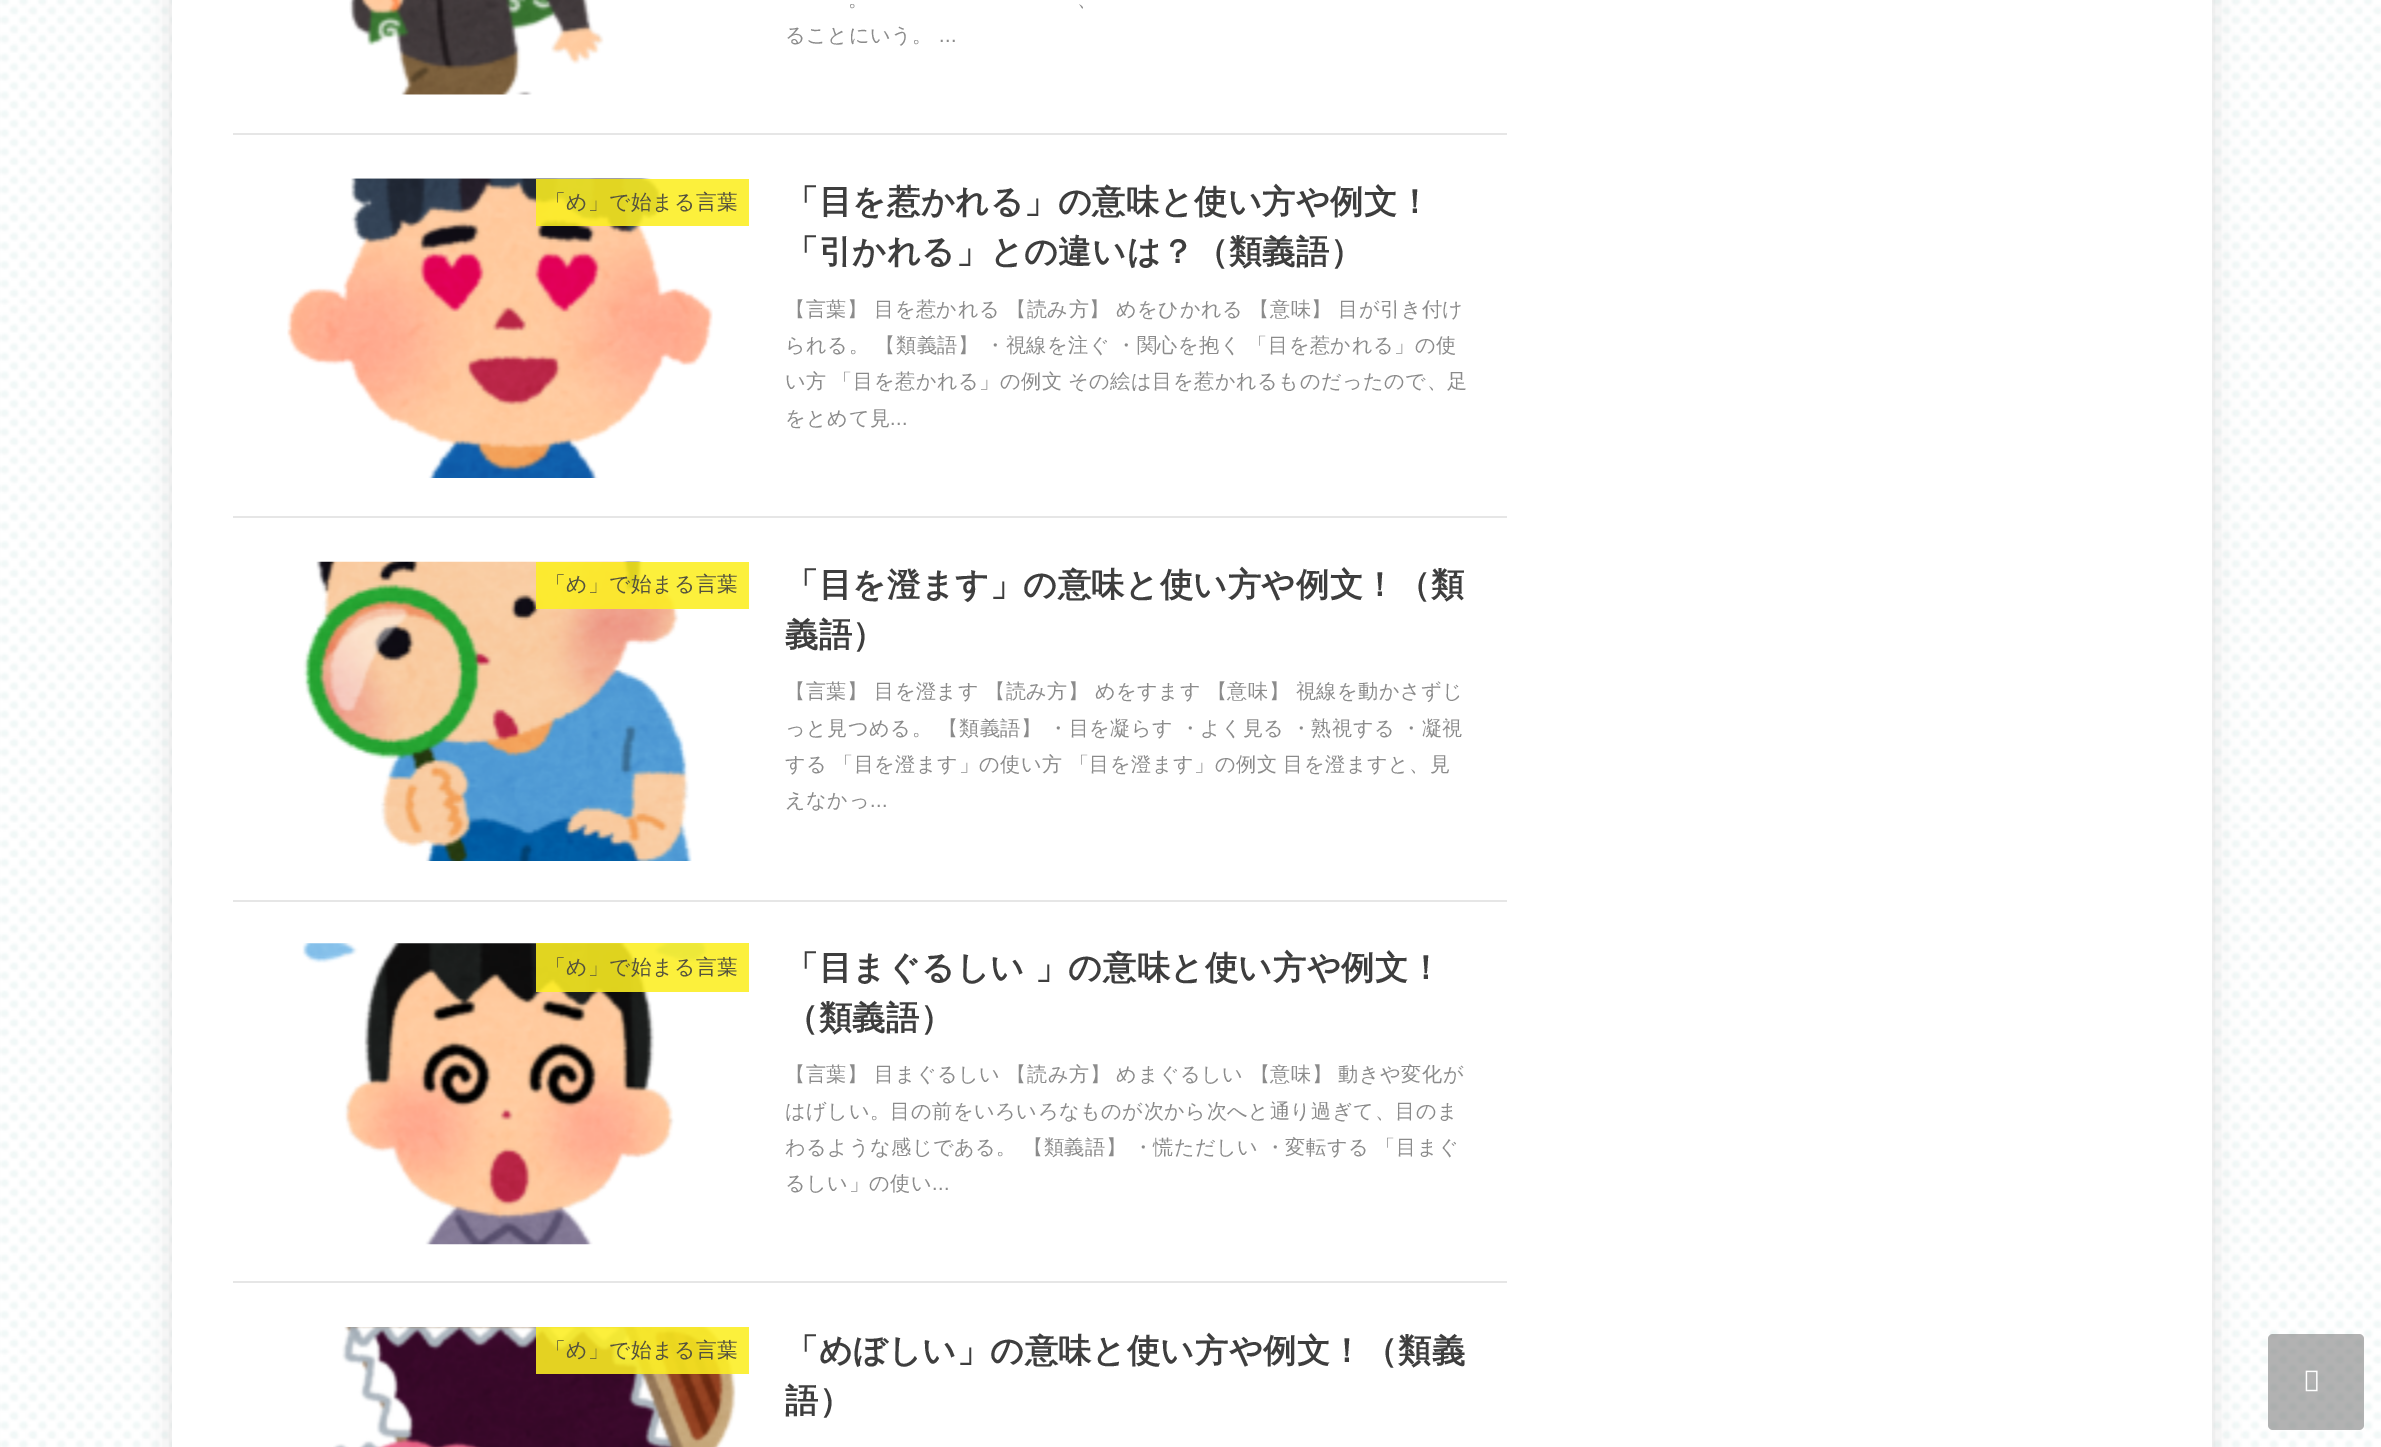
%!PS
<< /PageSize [2381 1447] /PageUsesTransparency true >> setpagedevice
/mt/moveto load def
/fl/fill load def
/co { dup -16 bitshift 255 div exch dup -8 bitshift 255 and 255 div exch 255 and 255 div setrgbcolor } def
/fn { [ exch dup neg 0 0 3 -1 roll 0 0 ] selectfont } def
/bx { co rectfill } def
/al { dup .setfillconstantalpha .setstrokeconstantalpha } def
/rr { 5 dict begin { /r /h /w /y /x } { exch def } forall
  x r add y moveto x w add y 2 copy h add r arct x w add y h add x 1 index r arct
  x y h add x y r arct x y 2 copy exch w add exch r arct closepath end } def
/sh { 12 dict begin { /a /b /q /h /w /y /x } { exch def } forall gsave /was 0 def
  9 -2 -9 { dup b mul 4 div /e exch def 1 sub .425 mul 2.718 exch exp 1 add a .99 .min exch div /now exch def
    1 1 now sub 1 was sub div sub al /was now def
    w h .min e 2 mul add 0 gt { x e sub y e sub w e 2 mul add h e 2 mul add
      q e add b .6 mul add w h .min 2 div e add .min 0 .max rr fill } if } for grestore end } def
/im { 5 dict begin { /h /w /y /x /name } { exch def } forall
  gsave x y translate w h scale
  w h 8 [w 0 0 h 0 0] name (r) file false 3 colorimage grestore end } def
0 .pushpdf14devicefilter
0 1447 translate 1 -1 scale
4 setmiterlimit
0 0 2381 1447 16#FFFFFF bx
(media/1.raw) 0 0 2381 1447 im
16#666666 co
172 -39 2040 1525 0 13 .2 sh
172 0 2040 1447 16#FFFFFF bx
233 133 1274 2 16#E6E6E6 bx
(media/2.raw) 349 0 255 95 im
233 516 1274 2 16#E6E6E6 bx
(media/3.raw) 287 178 426 300 im
0.88 al
536 179 213 47 16#FCEE21 bx
1 al
233 900 1274 2 16#E6E6E6 bx
(media/4.raw) 303 561 389 300 im
0.88 al
536 562 213 47 16#FCEE21 bx
1 al
233 1281 1274 2 16#E6E6E6 bx
(media/5.raw) 302 943 406 302 im
0.88 al
536 943 213 49 16#FCEE21 bx
1 al
(media/6.raw) 333 1327 403 120 im
0.88 al
536 1327 213 47 16#FCEE21 bx
0.5 al
16#666666 co
2268 1334 96 96 5 rr fl
1 al
(media/7.raw) 2305 1370 13 22 im
/WenQuanYiZenHei-Medium 20.2 fn
16#8B8B8B co
848 6 mt .5 0 (。) ashow
1077 6 mt .5 0 (、) ashow
785 42 mt .5 0 (ることにいう。) ashow
/LiberationSans-Regular 20.2 fn
939 42 mt .5 0 (...) ashow
/WenQuanYiZenHei-Medium 20.75 fn
16#54523D co
545 209 mt .5 0 (「め」で始まる言葉) ashow
/WenQuanYiZenHei-Bold 33.2 fn
16#3E3E3E co
785 213 mt .5 0 (「目を惹かれる」の意味と使い方や例文！) ashow
785 263 mt .5 0 (「引かれる」との違いは？（類義語）) ashow
/WenQuanYiZenHei-Medium 20.2 fn
16#8B8B8B co
785 316 mt -.5 0 32 .5 0 (【言葉】 目を惹かれる 【読み方】 めをひかれる 【意味】 目が引き付け) awidthshow
785 352 mt -.5 0 32 .5 0 (られる。 【類義語】 ・視線を注ぐ ・関心を抱く 「目を惹かれる」の使) awidthshow
785 388 mt -1 0 32 .5 0 (い方 「目を惹かれる」の例文 その絵は目を惹かれるものだったので、足) awidthshow
785 425 mt .5 0 (をとめて見) ashow
/LiberationSans-Regular 20.2 fn
890 425 mt .5 0 (...) ashow
/WenQuanYiZenHei-Medium 20.75 fn
16#54523D co
545 591 mt .5 0 (「め」で始まる言葉) ashow
/WenQuanYiZenHei-Bold 33.2 fn
16#3E3E3E co
785 596 mt .5 0 (「目を澄ます」の意味と使い方や例文！（類) ashow
785 646 mt .5 0 (義語）) ashow
/WenQuanYiZenHei-Medium 20.2 fn
16#8B8B8B co
785 698 mt -.5 0 32 .5 0 (【言葉】 目を澄ます 【読み方】 めをすます 【意味】 視線を動かさずじ) awidthshow
785 735 mt -.5 0 32 .5 0 (っと見つめる。 【類義語】 ・目を凝らす ・よく見る ・熟視する ・凝視) awidthshow
785 771 mt -1 0 32 .5 0 (する 「目を澄ます」の使い方 「目を澄ます」の例文 目を澄ますと、見) awidthshow
785 807 mt .5 0 (えなかっ) ashow
/LiberationSans-Regular 20.2 fn
870 807 mt .5 0 (...) ashow
/WenQuanYiZenHei-Medium 20.75 fn
16#54523D co
545 974 mt .5 0 (「め」で始まる言葉) ashow
/WenQuanYiZenHei-Bold 33.2 fn
16#3E3E3E co
785 979 mt -.5 0 32 .5 0 (「目まぐるしい 」の意味と使い方や例文！) awidthshow
785 1029 mt .5 0 (（類義語）) ashow
/WenQuanYiZenHei-Medium 20.2 fn
16#8B8B8B co
785 1081 mt -.5 0 32 .5 0 (【言葉】 目まぐるしい 【読み方】 めまぐるしい 【意味】 動きや変化が) awidthshow
785 1118 mt .5 0 (はげしい。目の前をいろいろなものが次から次へと通り過ぎて、目のま) ashow
785 1154 mt -.5 0 32 .5 0 (わるような感じである。 【類義語】 ・慌ただしい ・変転する 「目まぐ) awidthshow
785 1190 mt .5 0 (るしい」の使い) ashow
/LiberationSans-Regular 20.2 fn
932 1190 mt .5 0 (...) ashow
/WenQuanYiZenHei-Medium 20.75 fn
16#54523D co
545 1357 mt .5 0 (「め」で始まる言葉) ashow
/WenQuanYiZenHei-Bold 33.2 fn
16#3E3E3E co
785 1362 mt .5 0 (「めぼしい」の意味と使い方や例文！（類義) ashow
785 1412 mt .5 0 (語）) ashow
.poppdf14devicefilter showpage
